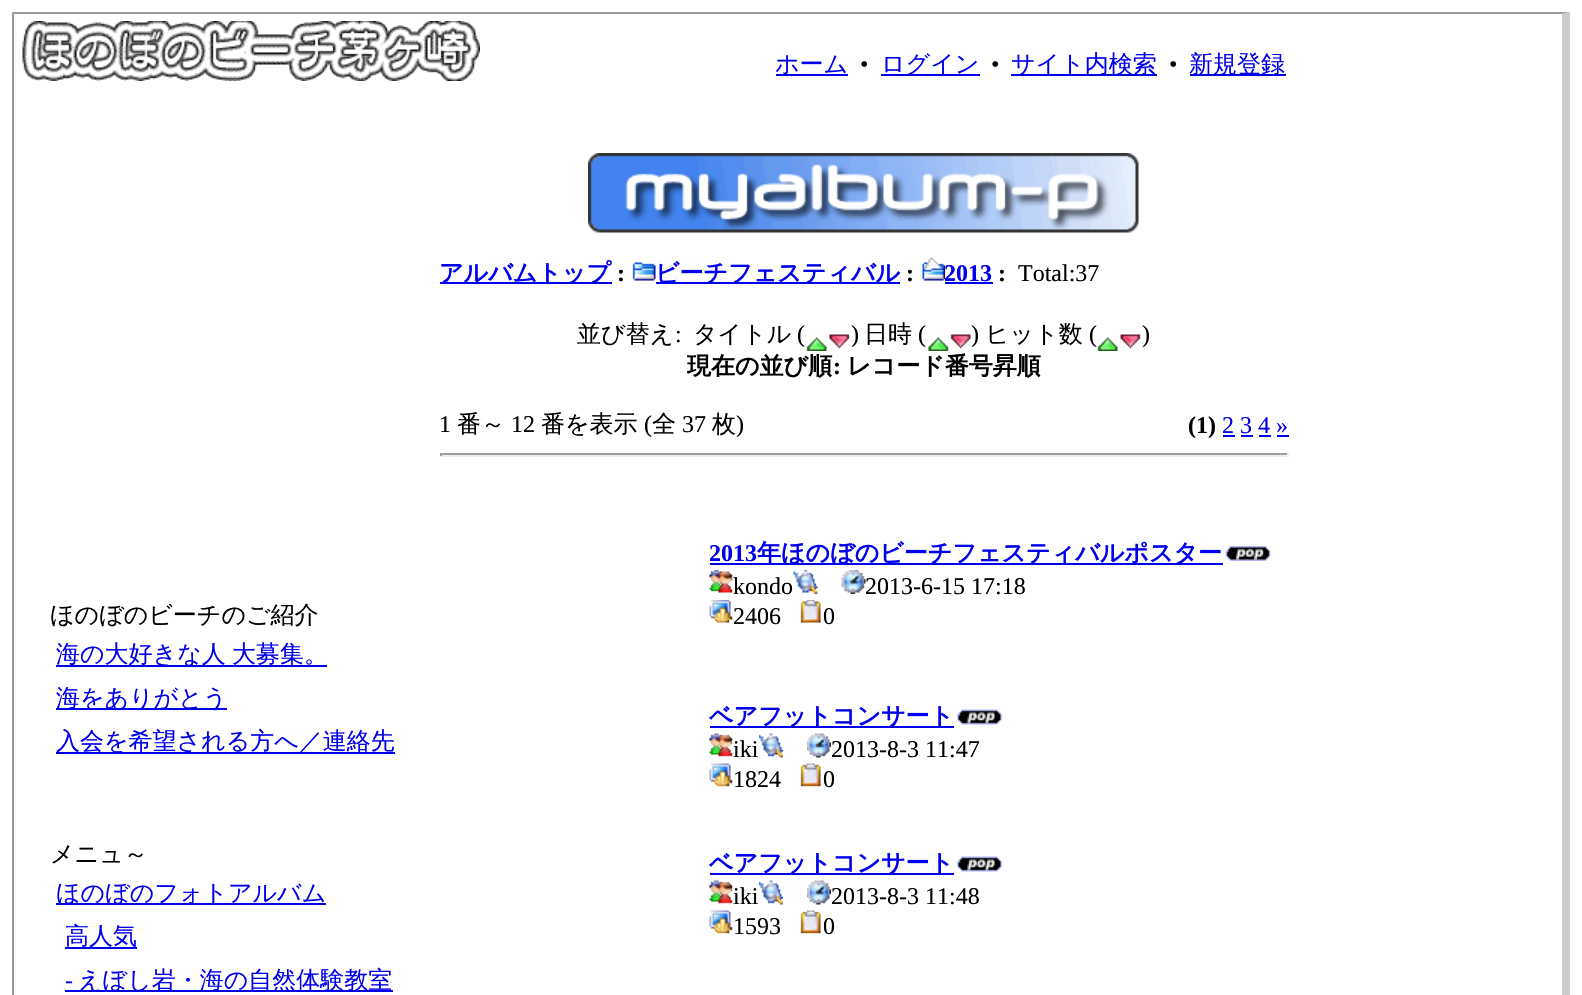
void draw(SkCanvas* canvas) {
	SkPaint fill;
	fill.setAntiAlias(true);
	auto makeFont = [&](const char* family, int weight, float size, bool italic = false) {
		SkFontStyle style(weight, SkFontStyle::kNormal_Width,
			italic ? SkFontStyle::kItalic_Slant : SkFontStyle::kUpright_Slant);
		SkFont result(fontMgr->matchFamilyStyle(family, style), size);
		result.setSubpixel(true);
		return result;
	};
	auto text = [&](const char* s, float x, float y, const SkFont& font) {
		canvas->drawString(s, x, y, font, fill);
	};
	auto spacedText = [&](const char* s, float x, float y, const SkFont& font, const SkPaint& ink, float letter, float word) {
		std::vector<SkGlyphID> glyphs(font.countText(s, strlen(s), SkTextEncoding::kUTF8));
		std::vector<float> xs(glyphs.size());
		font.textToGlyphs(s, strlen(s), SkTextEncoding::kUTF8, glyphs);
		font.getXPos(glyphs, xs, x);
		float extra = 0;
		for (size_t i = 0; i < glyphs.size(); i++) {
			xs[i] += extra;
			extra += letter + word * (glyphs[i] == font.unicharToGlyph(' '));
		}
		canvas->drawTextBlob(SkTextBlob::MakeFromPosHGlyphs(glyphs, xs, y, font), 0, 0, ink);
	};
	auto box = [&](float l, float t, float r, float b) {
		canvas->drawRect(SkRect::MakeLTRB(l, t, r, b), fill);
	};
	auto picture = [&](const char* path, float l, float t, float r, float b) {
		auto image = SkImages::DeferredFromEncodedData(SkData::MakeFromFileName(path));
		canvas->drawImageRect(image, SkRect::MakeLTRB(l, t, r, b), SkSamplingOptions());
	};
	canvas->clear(0xFFFFFFFF);
	fill.setColor(0xFF999999);
	canvas->drawPath(SkPathBuilder().moveTo(12, 12).lineTo(1570, 12).lineTo(1562, 14).lineTo(14, 14).close().detach(), fill);
	fill.setColor(0xFFCCCCCC);
	canvas->drawPath(SkPathBuilder().moveTo(1570, 12).lineTo(1570, 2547).lineTo(1562, 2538).lineTo(1562, 14).close().detach(), fill);
	fill.setColor(0xFF999999);
	canvas->drawPath(SkPathBuilder().moveTo(12, 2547).lineTo(12, 12).lineTo(14, 14).lineTo(14, 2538).close().detach(), fill);
	picture("image0.png", 22, 21, 480, 81);
	fill.setColor(0xFF0000EE);
	box(776, 74, 848, 76);
	box(881, 74, 980, 76);
	box(1011, 74, 1157, 76);
	box(1190, 74, 1286, 76);
	box(56, 665, 327, 667);
	box(56, 708, 227, 710);
	box(56, 752, 395, 754);
	box(56, 903, 326, 905);
	box(65, 947, 137, 949);
	box(65, 990, 393, 992);
	picture("image1.png", 588, 153, 1139, 233);
	box(440, 282, 612, 284);
	picture("image2.png", 632, 262, 656, 281);
	box(656, 282, 900, 284);
	picture("image3.png", 922, 257, 945, 281);
	box(945, 282, 993, 284);
	picture("image4.png", 806, 337, 827, 351);
	picture("image5.png", 829, 334, 850, 349);
	picture("image6.png", 928, 337, 949, 351);
	picture("image7.png", 950, 334, 971, 349);
	picture("image4.png", 1097, 337, 1118, 351);
	picture("image8.png", 1120, 334, 1141, 349);
	box(1223, 435, 1235, 437);
	box(1241, 435, 1253, 437);
	box(1259, 435, 1271, 437);
	box(1277, 435, 1289, 437);
	fill.setColor(0xFF9F9F9F);
	box(440, 453, 1289, 455);
	fill.setColor(0xFFEEEEEE);
	box(1287, 453, 1289, 456);
	box(440, 455, 1289, 457);
	fill.setColor(0xFF9F9F9F);
	box(440, 453, 442, 456);
	fill.setColor(0xFF0000EE);
	box(710, 563, 1223, 565);
	picture("image9.png", 1225, 546, 1271, 561);
	picture("image10.png", 709, 570, 733, 593);
	picture("image11.png", 793, 570, 818, 594);
	picture("image12.png", 841, 570, 866, 594);
	picture("image13.png", 709, 600, 733, 623);
	picture("image14.png", 800, 600, 821, 623);
	box(710, 726, 954, 728);
	picture("image15.png", 956, 709, 1003, 725);
	picture("image16.png", 709, 733, 733, 757);
	picture("image17.png", 759, 733, 783, 758);
	picture("image18.png", 807, 733, 831, 758);
	picture("image19.png", 709, 763, 733, 787);
	picture("image20.png", 800, 763, 821, 787);
	box(710, 873, 954, 875);
	picture("image15.png", 956, 856, 1003, 872);
	picture("image16.png", 709, 880, 733, 904);
	picture("image17.png", 759, 880, 783, 905);
	picture("image18.png", 807, 880, 831, 905);
	picture("image19.png", 709, 910, 733, 934);
	picture("image20.png", 800, 910, 821, 934);
	auto font1 = makeFont("WenQuanYi Zen Hei", 500, 24);
	text("ホーム", 775, 72, font1);
	auto font2 = makeFont("Liberation Serif", 400, 24);
	fill.setColor(0xFF000000);
	text("•", 860, 72, font2);
	fill.setColor(0xFF0000EE);
	text("ログイン", 881, 72, font1);
	fill.setColor(0xFF000000);
	text("•", 991, 72, font2);
	fill.setColor(0xFF0000EE);
	text("サイト内検索", 1011, 72, font1);
	fill.setColor(0xFF000000);
	text("•", 1169, 72, font2);
	fill.setColor(0xFF0000EE);
	text("新規登録", 1189, 72, font1);
	fill.setColor(0xFF000000);
	text("ほのぼのビーチのご紹介", 50, 623, font1);
	fill.setColor(0xFF0000EE);
	spacedText("海の大好きな人 大募集。", 56, 662, font1, fill, 0, -1);
	text("海をありがとう", 56, 706, font1);
	text("入会を希望される方へ／連絡先", 56, 749, font1);
	fill.setColor(0xFF000000);
	text("メニュ～", 50, 862, font1);
	fill.setColor(0xFF0000EE);
	text("ほのぼのフォトアルバム", 56, 901, font1);
	text("高人気", 65, 944, font1);
	text("-", 65, 988, font2);
	text("えぼし岩・海の自然体験教室", 78, 988, font1);
	auto font3 = makeFont("WenQuanYi Zen Hei", 700, 24);
	text("アルバムトップ", 439, 281, font3);
	auto font4 = makeFont("Liberation Serif", 700, 24);
	fill.setColor(0xFF000000);
	text(":", 617, 281, font4);
	fill.setColor(0xFF0000EE);
	text("ビーチフェスティバル", 655, 281, font3);
	fill.setColor(0xFF000000);
	text(":", 906, 281, font4);
	fill.setColor(0xFF0000EE);
	text("2013", 944, 281, font4);
	fill.setColor(0xFF000000);
	text(":", 998, 281, font4);
	text("Total:37", 1018, 281, font2);
	text("並び替え", 577, 342, font1);
	text(":", 675, 342, font2);
	text("タイトル", 693, 342, font1);
	text("(", 797, 342, font2);
	text(")", 851, 342, font2);
	text("日時", 864, 342, font1);
	text("(", 918, 342, font2);
	text(")", 971, 342, font2);
	text("ヒット数", 985, 342, font1);
	text("(", 1089, 342, font2);
	text(")", 1142, 342, font2);
	text("現在の並び順", 687, 374, font3);
	text(":", 833, 374, font4);
	text("レコード番号昇順", 847, 374, font3);
	text("1", 439, 432, font2);
	text("番～", 457, 432, font1);
	text("12", 511, 432, font2);
	text("番を表示", 541, 432, font1);
	text("(", 644, 432, font2);
	text("全", 652, 432, font1);
	text("37", 682, 432, font2);
	text("枚", 712, 432, font1);
	text(")", 736, 432, font2);
	text("(1)", 1188, 433, font4);
	fill.setColor(0xFF0000EE);
	text("2 3 4 »", 1222, 433, font2);
	text("2013", 709, 561, font4);
	text("年ほのぼのビーチフェスティバルポスター", 757, 561, font3);
	fill.setColor(0xFF000000);
	text("kondo", 733, 594, font2);
	text("2013-6-15 17:18", 865, 594, font2);
	text("2406", 733, 624, font2);
	text("0", 823, 624, font2);
	fill.setColor(0xFF0000EE);
	text("ベアフットコンサート", 709, 724, font3);
	fill.setColor(0xFF000000);
	text("iki", 733, 757, font2);
	text("2013-8-3 11:47", 831, 757, font2);
	text("1824", 733, 787, font2);
	text("0", 823, 787, font2);
	fill.setColor(0xFF0000EE);
	text("ベアフットコンサート", 709, 871, font3);
	fill.setColor(0xFF000000);
	text("iki", 733, 904, font2);
	text("2013-8-3 11:48", 831, 904, font2);
	text("1593", 733, 934, font2);
	text("0", 823, 934, font2);
}
